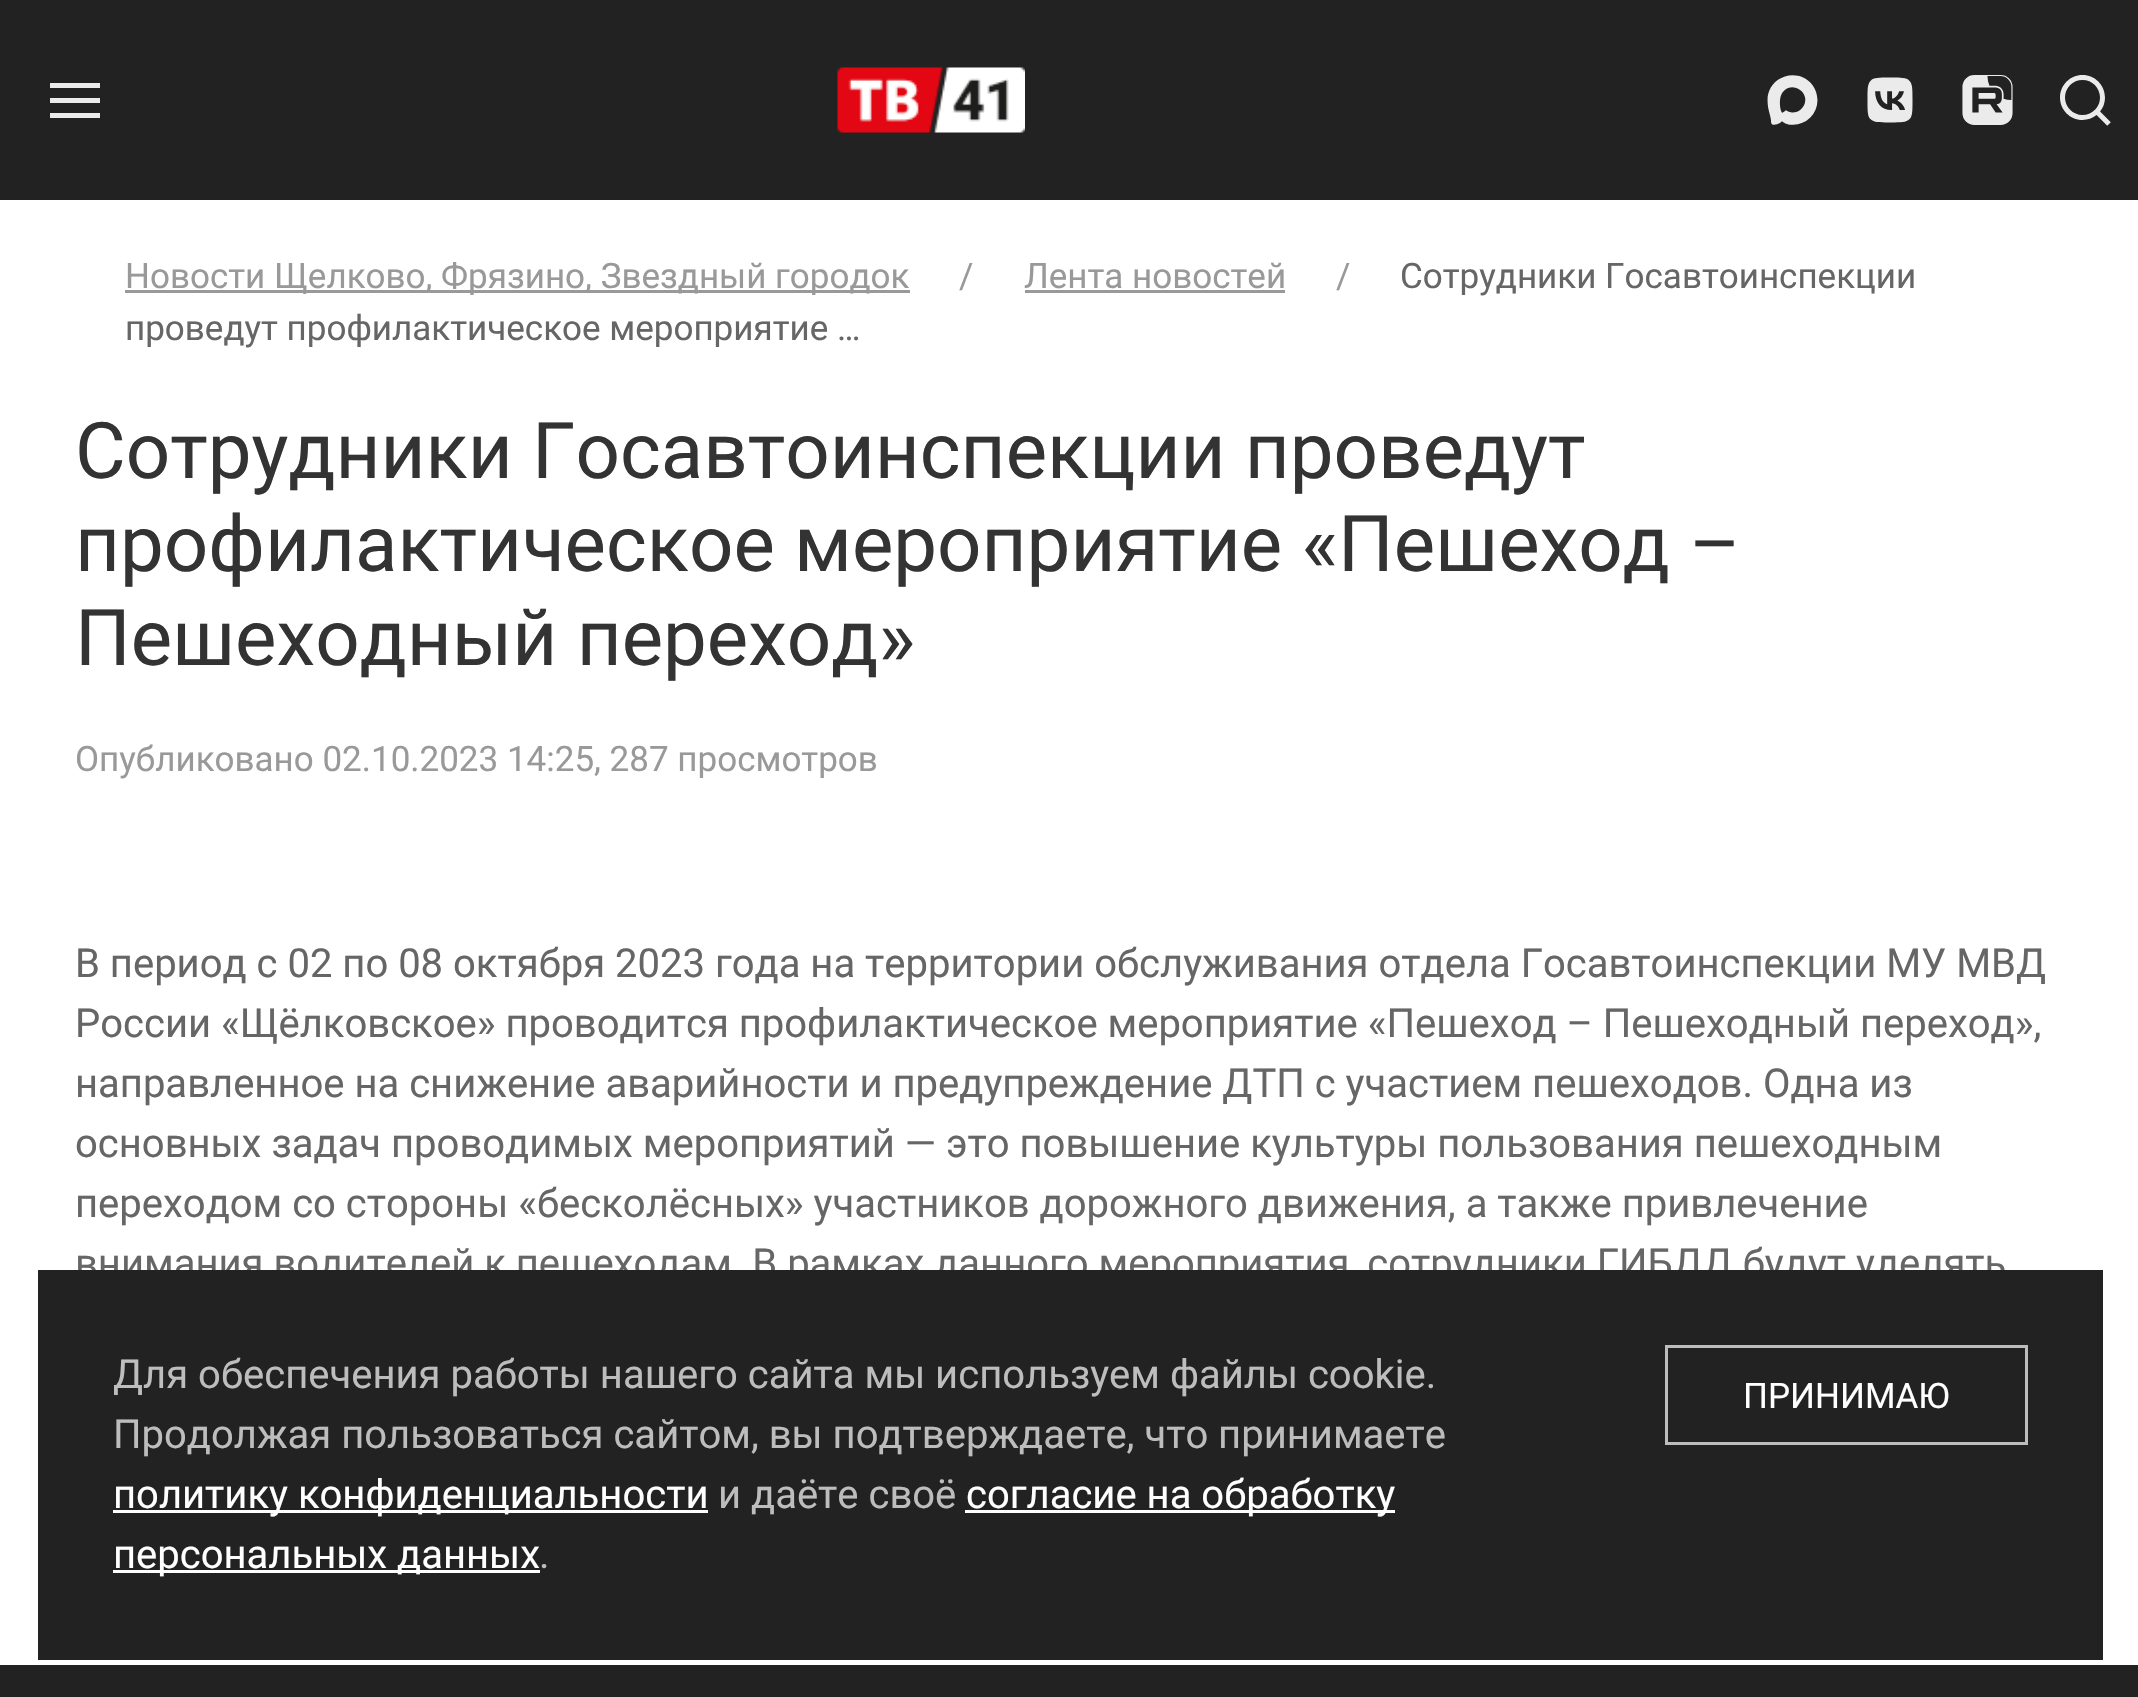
void draw(SkCanvas* canvas) {
	SkPaint fill;
	fill.setAntiAlias(true);
	auto makeFont = [&](const char* family, int weight, float size, bool italic = false) {
		SkFontStyle style(weight, SkFontStyle::kNormal_Width,
			italic ? SkFontStyle::kItalic_Slant : SkFontStyle::kUpright_Slant);
		SkFont result(fontMgr->matchFamilyStyle(family, style), size);
		result.setSubpixel(true);
		return result;
	};
	auto text = [&](const char* s, float x, float y, const SkFont& font) {
		canvas->drawString(s, x, y, font, fill);
	};
	auto box = [&](float l, float t, float r, float b) {
		canvas->drawRect(SkRect::MakeLTRB(l, t, r, b), fill);
	};
	auto picture = [&](const char* path, float l, float t, float r, float b) {
		auto image = SkImages::DeferredFromEncodedData(SkData::MakeFromFileName(path));
		canvas->drawImageRect(image, SkRect::MakeLTRB(l, t, r, b), SkSamplingOptions());
	};
	canvas->clear(0xFFFFFFFF);
	fill.setColor(0xFF222222);
	box(0, 0, 2138, 200);
	fill.setColor(0xFFEBEBEB);
	box(50, 83, 100, 88);
	box(50, 98, 100, 103);
	box(50, 113, 100, 118);
	picture("image0.png", 837, 67, 1025, 133);
	picture("image1.png", 1767, 75, 1818, 125);
	picture("image2.png", 1867, 77, 1913, 123);
	picture("image3.png", 1962, 75, 2013, 125);
	picture("image4.png", 2060, 75, 2111, 126);
	fill.setColor(0xFF999999);
	box(125, 290, 910, 293);
	box(1025, 290, 1285, 293);
	fill.setColor(0xFF222222);
	box(0, 1665, 2138, 1697);
	auto font1 = makeFont("Roboto", 400, 35);
	fill.setColor(0xFF999999);
	text("Новости Щелково, Фрязино, Звездный городок", 125, 288, font1);
	text("/", 1336, 288, font1);
	fill.setColor(0xFF666666);
	text("Сотрудники Госавтоинспекции", 1400, 288, font1);
	text("проведут профилактическое мероприятие …", 125, 340, font1);
	fill.setColor(0xFF999999);
	text("/", 959, 288, font1);
	text("Лента новостей", 1024, 288, font1);
	auto font2 = makeFont("Roboto", 400, 78);
	fill.setColor(0xFF333333);
	text("Сотрудники Госавтоинспекции проведут", 75, 478, font2);
	text("профилактическое мероприятие «Пешеход –", 75, 571, font2);
	text("Пешеходный переход»", 75, 665, font2);
	fill.setColor(0xFF999999);
	text("Опубликовано 02.10.2023 14:25, 287 просмотров", 75, 771, font1);
	auto font3 = makeFont("Roboto", 400, 40);
	fill.setColor(0xFF666666);
	text("В период с 02 по 08 октября 2023 года на территории обслуживания отдела Госавтоинспекции МУ МВД", 75, 977, font3);
	text("России «Щёлковское» проводится профилактическое мероприятие «Пешеход – Пешеходный переход»,", 75, 1037, font3);
	text("направленное на снижение аварийности и предупреждение ДТП с участием пешеходов. Одна из", 75, 1097, font3);
	text("основных задач проводимых мероприятий — это повышение культуры пользования пешеходным", 75, 1157, font3);
	text("переходом со стороны «бесколёсных» участников дорожного движения, а также привлечение", 75, 1217, font3);
	text("внимания водителей к пешеходам. В рамках данного мероприятия, сотрудники ГИБДД будут уделять", 75, 1277, font3);
	fill.setColor(0xFF222222);
	box(38, 1270, 2103, 1660);
	fill.setColor(0xFFBDBDBD);
	text("Для обеспечения работы нашего сайта мы используем файлы cookie.", 113, 1388, font3);
	text("Продолжая пользоваться сайтом, вы подтверждаете, что принимаете", 113, 1448, font3);
	fill.setColor(0xFFFFFFFF);
	box(113, 1510, 708, 1513);
	text("политику конфиденциальности", 113, 1508, font3);
	fill.setColor(0xFFBDBDBD);
	text("и даёте своё", 718, 1508, font3);
	fill.setColor(0xFFFFFFFF);
	box(965, 1510, 1395, 1513);
	text("согласие на обработку", 966, 1508, font3);
	box(113, 1570, 540, 1573);
	text("персональных данных", 113, 1568, font3);
	fill.setColor(0xFFBDBDBD);
	text(".", 539, 1568, font3);
	fill.setStyle(SkPaint::kStroke_Style);
	fill.setStrokeWidth(3);
	canvas->drawRect(SkRect::MakeLTRB(1666.5f, 1346.5f, 2026.5f, 1443.5f), fill);
	fill.setStyle(SkPaint::kFill_Style);
	fill.setColor(0xFFFFFFFF);
	text("ПРИНИМАЮ", 1743, 1408, font1);
}
